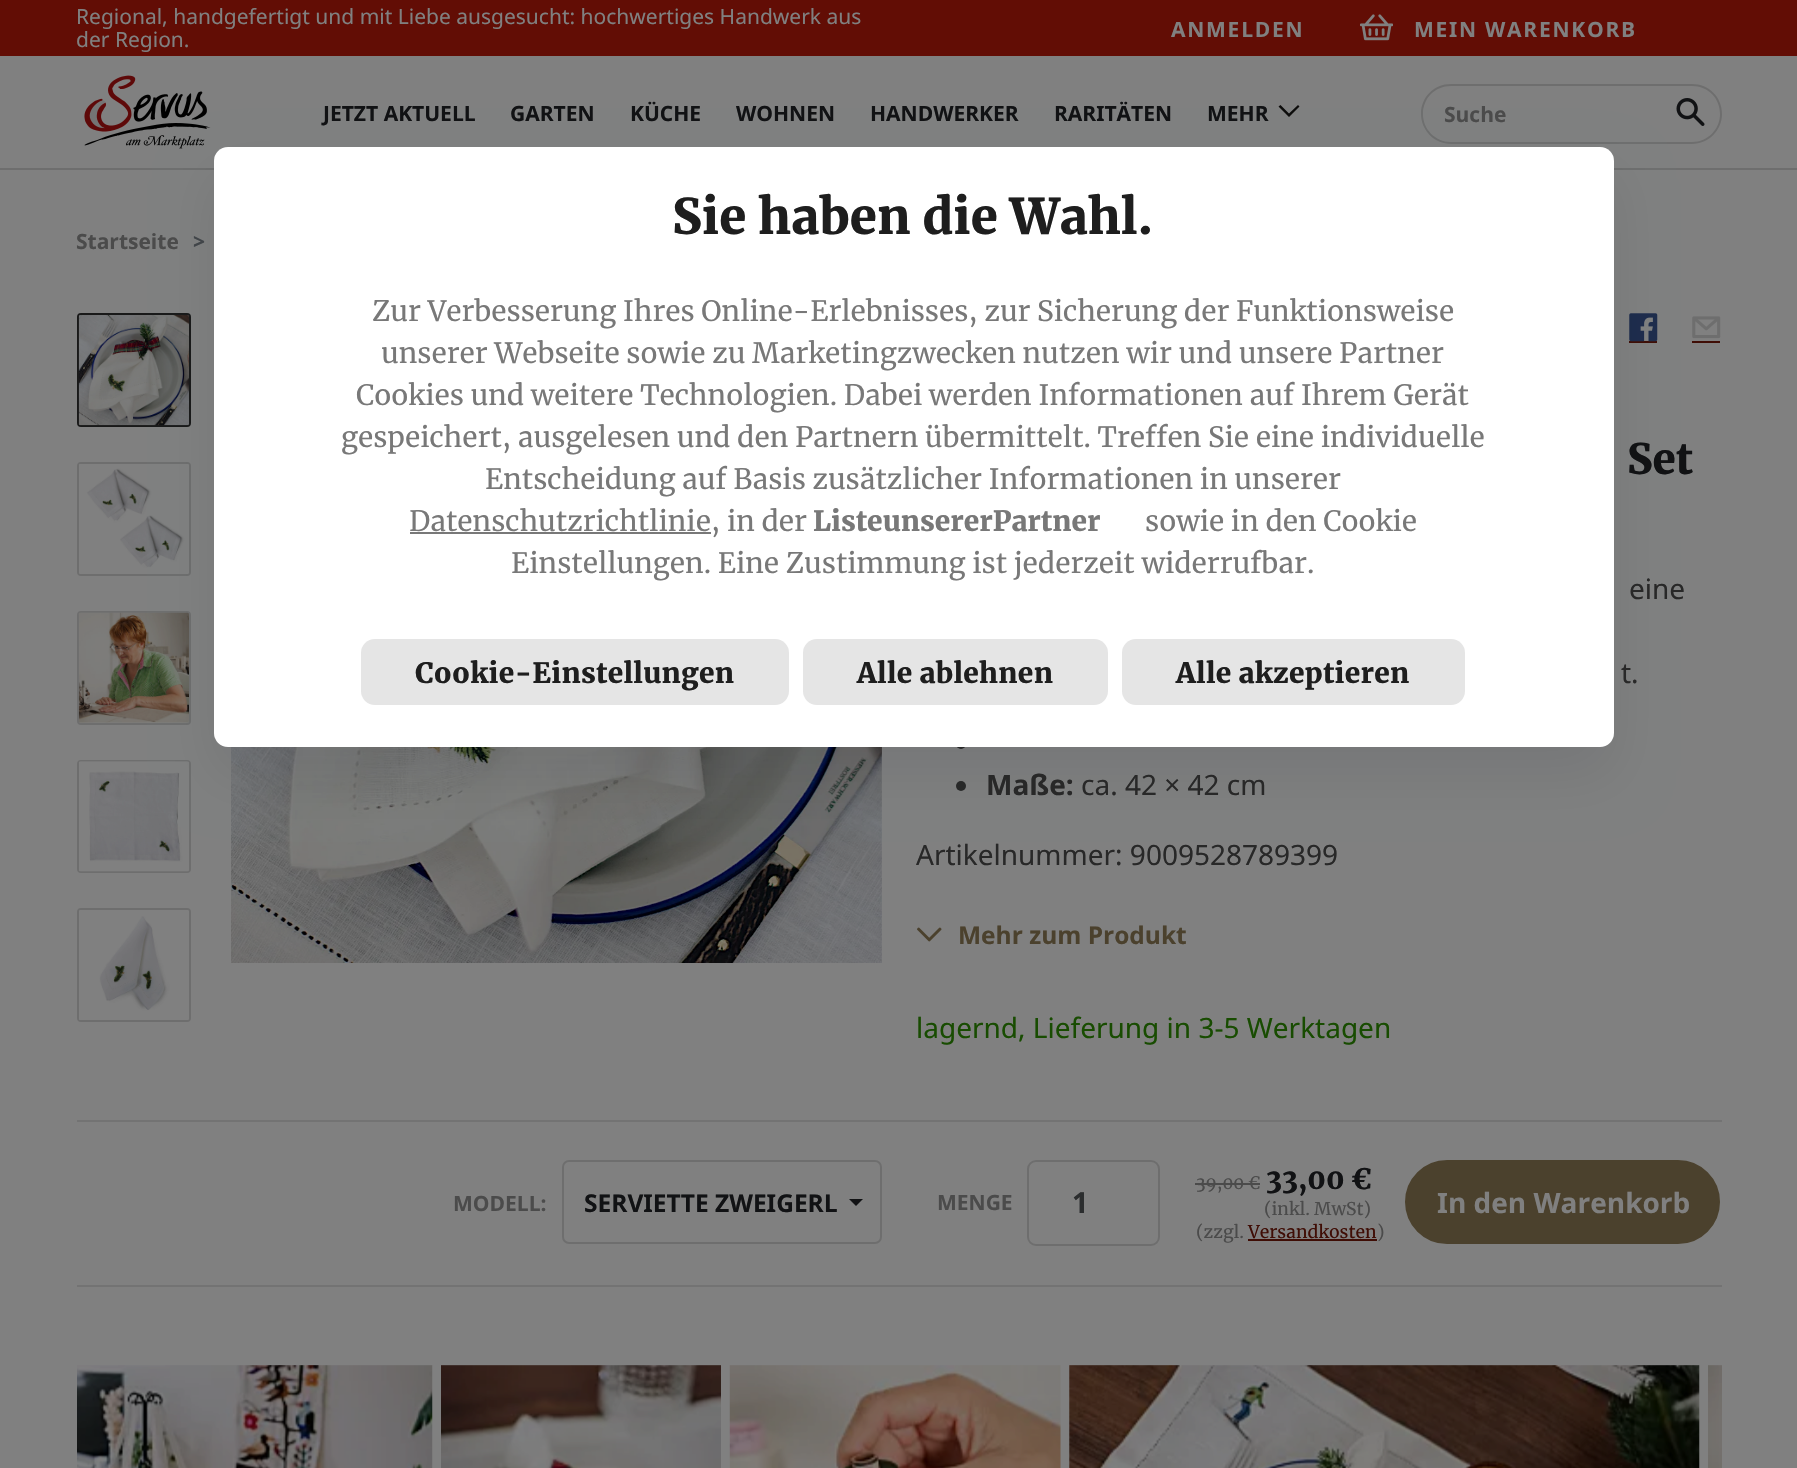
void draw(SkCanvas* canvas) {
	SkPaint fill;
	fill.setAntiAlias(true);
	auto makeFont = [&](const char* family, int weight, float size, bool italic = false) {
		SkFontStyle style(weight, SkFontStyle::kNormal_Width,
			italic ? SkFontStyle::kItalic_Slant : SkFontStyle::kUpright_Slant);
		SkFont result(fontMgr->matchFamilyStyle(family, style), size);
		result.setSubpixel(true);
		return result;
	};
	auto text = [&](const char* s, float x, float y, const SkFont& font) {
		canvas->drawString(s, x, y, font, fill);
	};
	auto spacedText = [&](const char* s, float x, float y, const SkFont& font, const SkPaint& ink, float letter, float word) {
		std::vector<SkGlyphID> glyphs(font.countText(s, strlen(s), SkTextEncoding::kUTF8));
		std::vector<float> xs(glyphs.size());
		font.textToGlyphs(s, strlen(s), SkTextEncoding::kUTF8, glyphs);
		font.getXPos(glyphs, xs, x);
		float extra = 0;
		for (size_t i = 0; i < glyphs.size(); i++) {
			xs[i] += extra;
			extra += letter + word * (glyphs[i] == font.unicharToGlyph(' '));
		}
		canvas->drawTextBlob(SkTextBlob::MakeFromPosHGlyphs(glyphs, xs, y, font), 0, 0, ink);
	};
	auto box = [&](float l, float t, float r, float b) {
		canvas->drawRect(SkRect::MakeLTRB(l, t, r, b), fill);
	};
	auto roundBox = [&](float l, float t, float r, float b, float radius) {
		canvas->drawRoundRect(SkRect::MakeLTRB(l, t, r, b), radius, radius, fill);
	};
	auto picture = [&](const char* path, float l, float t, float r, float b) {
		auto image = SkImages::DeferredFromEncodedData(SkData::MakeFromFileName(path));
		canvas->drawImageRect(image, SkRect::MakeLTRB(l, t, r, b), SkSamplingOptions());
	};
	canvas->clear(0xFF808080);
	fill.setColor(0xFF6E6E6E);
	box(0, 168, 1797, 170);
	fill.setColor(0xFF620D05);
	box(0, 0, 1797, 56);
	fill.setColor(0xFF0D0C0B);
	canvas->drawPath(SkPathBuilder().moveTo(1299.5f, 106.5f).lineTo(1298, 105).lineTo(1289, 113.5f).lineTo(1280.5f, 105).lineTo(1278.5f, 106.5f).lineTo(1289, 117).close().detach(), fill);
	picture("image0.png", 1360, 14, 1393, 41);
	picture("image1.png", 84, 75, 211, 149);
	fill.setColor(0xFF6E6E6E);
	canvas->drawPath(SkPathBuilder(SkPathFillType::kEvenOdd).moveTo(1451, 84).lineTo(1666, 84).lineTo(1666, 144).lineTo(1451, 144).cubicTo(1434, 144, 1421, 130, 1421, 114).cubicTo(1421, 97, 1434, 84, 1451, 84).close().moveTo(1451, 86).lineTo(1666, 86).lineTo(1666, 142).lineTo(1451, 142).cubicTo(1435, 142, 1423, 129, 1423, 114).cubicTo(1423, 98, 1435, 86, 1451, 86).close().detach(), fill);
	canvas->drawPath(SkPathBuilder(SkPathFillType::kEvenOdd).moveTo(1664, 84).lineTo(1692, 84).cubicTo(1709, 84, 1722, 97, 1722, 114).cubicTo(1722, 130, 1709, 144, 1692, 144).lineTo(1664, 144).close().moveTo(1664, 86).lineTo(1692, 86).cubicTo(1708, 86, 1720, 98, 1720, 114).cubicTo(1720, 129, 1708, 142, 1692, 142).lineTo(1664, 142).close().detach(), fill);
	picture("image2.png", 1676, 98, 1705, 126);
	fill.setStyle(SkPaint::kStroke_Style);
	fill.setStrokeWidth(2);
	fill.setColor(0xFF191919);
	canvas->drawRoundRect(SkRect::MakeLTRB(78, 314, 190, 426), 3, 3, fill);
	picture("image3.png", 78, 315, 189, 426);
	fill.setColor(0xFF6E6E6E);
	canvas->drawRoundRect(SkRect::MakeLTRB(78, 463, 190, 575), 3, 3, fill);
	picture("image4.png", 79, 464, 189, 574);
	canvas->drawRoundRect(SkRect::MakeLTRB(78, 612, 190, 724), 3, 3, fill);
	picture("image5.png", 78, 612, 189, 723);
	canvas->drawRoundRect(SkRect::MakeLTRB(78, 761, 190, 872), 3, 3, fill);
	picture("image6.png", 79, 761, 189, 872);
	canvas->drawRoundRect(SkRect::MakeLTRB(78, 909, 190, 1021), 3, 3, fill);
	picture("image7.png", 79, 910, 189, 1020);
	picture("image8.png", 231, 747, 882, 963);
	fill.setStyle(SkPaint::kFill_Style);
	fill.setColor(0xFF3F0D05);
	box(1629, 341, 1657, 343);
	picture("image9.png", 1629, 313, 1658, 342);
	picture("image10.png", 1692, 316, 1721, 339);
	box(1692, 341, 1720, 343);
	fill.setColor(0xFF282828);
	canvas->drawCircle(961, 744, 5, fill);
	canvas->drawCircle(961, 786, 5, fill);
	picture("image11.png", 917, 927, 942, 942);
	fill.setColor(0xFF737373);
	box(77, 1120, 1722, 1122);
	fill.setStyle(SkPaint::kStroke_Style);
	fill.setColor(0xFF6E6E6E);
	canvas->drawRoundRect(SkRect::MakeLTRB(563, 1161, 881, 1243), 6, 6, fill);
	fill.setStyle(SkPaint::kFill_Style);
	fill.setColor(0xFF111214);
	canvas->drawPath(SkPathBuilder().moveTo(849, 1199).lineTo(863, 1199).lineTo(856, 1206).close().detach(), fill);
	fill.setStyle(SkPaint::kStroke_Style);
	fill.setColor(0xFF6E6E6E);
	canvas->drawRoundRect(SkRect::MakeLTRB(1028, 1161, 1159, 1245), 8, 8, fill);
	fill.setStyle(SkPaint::kFill_Style);
	fill.setColor(0xFF4B4B4B);
	box(1195, 1183, 1260, 1185);
	fill.setColor(0xFF3F0D05);
	box(1248, 1239, 1377, 1241);
	fill.setColor(0xFF4B412D);
	canvas->drawRoundRect(SkRect::MakeLTRB(1406, 1161, 1719, 1243), 41, 41, fill);
	fill.setStyle(SkPaint::kStroke_Style);
	canvas->drawRoundRect(SkRect::MakeLTRB(1406, 1161, 1719, 1243), 41, 41, fill);
	fill.setStyle(SkPaint::kFill_Style);
	fill.setColor(0xFF737373);
	box(77, 1285, 1722, 1287);
	picture("image12.png", 77, 1365, 433, 1468);
	picture("image13.png", 441, 1365, 721, 1468);
	picture("image14.png", 729, 1365, 1061, 1468);
	picture("image15.png", 1069, 1365, 1700, 1468);
	picture("image16.png", 1708, 1365, 1722, 1468);
	fill.setColor(0x14000F1E);
	fill.setMaskFilter(SkMaskFilter::MakeBlur(kNormal_SkBlurStyle, 28));
	canvas->drawRoundRect(SkRect::MakeLTRB(214, 175, 1614, 775), 14, 14, fill);
	fill.setMaskFilter(nullptr);
	fill.setColor(0xFFFFFFFF);
	roundBox(214, 147, 1614, 747, 14);
	fill.setColor(0xFF787878);
	box(410, 532, 711, 534);
	fill.setColor(0xFFE5E5E5);
	roundBox(361, 639, 789, 705, 14);
	roundBox(803, 639, 1108, 705, 14);
	roundBox(1122, 639, 1465, 705, 14);
	auto font1 = makeFont("Noto Sans", 400, 21);
	fill.setColor(0xFF808080);
	text("Regional, handgefertigt und mit Liebe ausgesucht: hochwertiges Handwerk aus", 76, 24, font1);
	text("der Region.", 76, 47, font1);
	auto font2 = makeFont("Noto Sans", 700, 21);
	fill.setColor(0xFF111214);
	text("JETZT AKTUELL", 323, 121, font2);
	text("GARTEN", 510, 121, font2);
	text("KÜCHE", 630, 121, font2);
	text("WOHNEN", 736, 121, font2);
	text("HANDWERKER", 870, 121, font2);
	text("RARITÄTEN", 1054, 121, font2);
	text("MEHR", 1207, 121, font2);
	fill.setColor(0xFF808080);
	spacedText("ANMELDEN", 1171, 37, font2, fill, 1.75f, 0);
	spacedText("MEIN WARENKORB", 1414, 37, font2, fill, 1.75f, 0);
	fill.setColor(0xFF4B4B4B);
	text("Suche", 1444, 122, font2);
	text("Startseite", 76, 249, font2);
	fill.setColor(0xFF414549);
	text(">", 193, 249, font2);
	auto font3 = makeFont("Merriweather", 900, 42);
	fill.setColor(0xFF111214);
	text("Set", 1627, 474, font3);
	auto font4 = makeFont("Noto Sans", 400, 28);
	fill.setColor(0xFF282828);
	text("eine", 1629, 599, font4);
	text("t.", 1621, 683, font4);
	auto font5 = makeFont("Noto Sans", 700, 28);
	text("Maße:", 986, 795, font5);
	text("ca. 42 × 42 cm", 1081, 795, font4);
	text("Artikelnummer: 9009528789399", 916, 865, font4);
	auto font6 = makeFont("Noto Sans", 700, 24.5f);
	fill.setColor(0xFF4B412D);
	text("Mehr zum Produkt", 958, 944, font6);
	fill.setColor(0xFF184C01);
	text("lagernd, Lieferung in 3-5 Werktagen", 916, 1038, font4);
	fill.setColor(0xFF4B4B4B);
	text("MODELL:", 453, 1211, font2);
	canvas->save();
	canvas->clipRect(SkRect::MakeLTRB(585, 1173, 838, 1232));
	fill.setColor(0xFF111214);
	text("SERVIETTE ZWEIGERL", 584, 1212, font6);
	canvas->restore();
	fill.setColor(0xFF4B4B4B);
	text("MENGE", 937, 1210, font2);
	auto font7 = makeFont("Noto Sans", 700, 29);
	fill.setColor(0xFF2B2D2E);
	text("1", 1072, 1213, font7);
	auto font8 = makeFont("Merriweather", 400, 17);
	fill.setColor(0xFF4B4B4B);
	text("39,00 €", 1196, 1189, font8);
	auto font9 = makeFont("Merriweather", 900, 28);
	fill.setColor(0xFF111214);
	text("33,00 €", 1266, 1189, font9);
	auto font10 = makeFont("Merriweather", 400, 17.5f);
	fill.setColor(0xFF4B4B4B);
	text("(inkl. MwSt)", 1264, 1215, font10);
	text("(zzgl.", 1196, 1238, font10);
	fill.setColor(0xFF3F0D05);
	text("Versandkosten", 1248, 1238, font10);
	fill.setColor(0xFF4B4B4B);
	text(")", 1377, 1238, font10);
	fill.setColor(0xFF808080);
	text("In den Warenkorb", 1437, 1213, font5);
	auto font11 = makeFont("Merriweather", 900, 49);
	fill.setColor(0xFF1E1E1E);
	text("Sie haben die Wahl.", 672, 234, font11);
	auto font12 = makeFont("Merriweather", 400, 28);
	fill.setColor(0xFF787878);
	text("Zur Verbesserung Ihres Online-Erlebnisses, zur Sicherung der Funktionsweise", 372, 321, font12);
	text("unserer Webseite sowie zu Marketingzwecken nutzen wir und unsere Partner", 381, 363, font12);
	text("Cookies und weitere Technologien. Dabei werden Informationen auf Ihrem Gerät", 356, 405, font12);
	text("gespeichert, ausgelesen und den Partnern übermittelt. Treffen Sie eine individuelle", 341, 447, font12);
	text("Entscheidung auf Basis zusätzlicher Informationen in unserer", 485, 489, font12);
	text("Datenschutzrichtlinie, in der", 409, 531, font12);
	text("Liste unserer Partner", 813, 531, font9);
	text("sowie in den Cookie", 1145, 531, font12);
	text("Einstellungen. Eine Zustimmung ist jederzeit widerrufbar.", 511, 573, font12);
	fill.setColor(0xFF1E1E1E);
	spacedText("Cookie-Einstellungen", 415, 683, font9, fill, 0.25f, 0);
	spacedText("Alle ablehnen", 857, 683, font9, fill, 0.25f, 0);
	spacedText("Alle akzeptieren", 1176, 683, font9, fill, 0.25f, 0);
}
